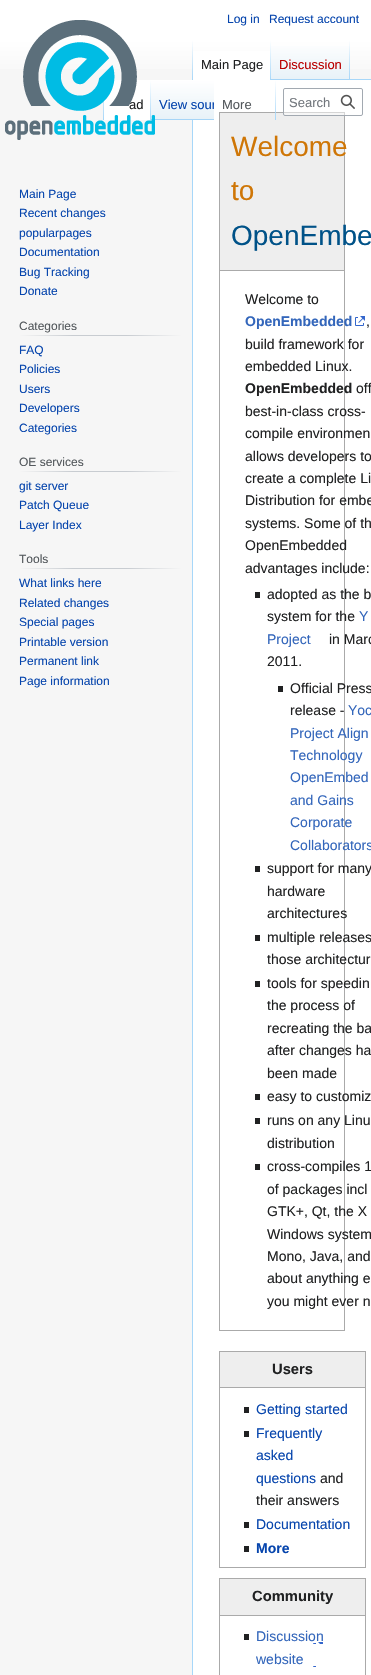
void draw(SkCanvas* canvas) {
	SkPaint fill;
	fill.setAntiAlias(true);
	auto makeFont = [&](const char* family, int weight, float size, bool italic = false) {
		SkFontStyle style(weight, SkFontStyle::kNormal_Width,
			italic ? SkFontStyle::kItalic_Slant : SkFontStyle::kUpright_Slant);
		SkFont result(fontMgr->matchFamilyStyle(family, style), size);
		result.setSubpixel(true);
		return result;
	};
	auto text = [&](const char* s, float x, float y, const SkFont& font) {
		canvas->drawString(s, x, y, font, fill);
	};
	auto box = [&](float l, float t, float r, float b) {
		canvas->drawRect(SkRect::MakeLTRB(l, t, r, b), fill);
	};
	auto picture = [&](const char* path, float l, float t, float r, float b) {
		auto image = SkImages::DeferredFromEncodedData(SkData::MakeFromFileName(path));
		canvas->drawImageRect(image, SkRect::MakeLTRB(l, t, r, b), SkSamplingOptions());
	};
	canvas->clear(0xFFF6F6F6);
	{
		const SkColor colors[] = {0xFFFFFFFF, 0xFFF6F6F6};
		const float stops[] = {0.5f, 1};
		const SkPoint ends[] = {{186, 0}, {186, 80}};
		fill.setShader(SkGradientShader::MakeLinear(ends, colors, stops, 2, SkTileMode::kClamp));
		fill.setAlpha(255);
	}
	box(0, 0, 371, 69);
	fill.setShader(nullptr);
	fill.setColor(0xFFA7D7F9);
	box(192, 79, 193, 1675);
	{
		const SkColor colors[] = {0x00A7D7F9, 0xFFA7D7F9};
		const float stops[] = {0, 1};
		const SkPoint ends[] = {{193, 40}, {193, 80}};
		fill.setShader(SkGradientShader::MakeLinear(ends, colors, stops, 2, SkTileMode::kClamp));
		fill.setAlpha(255);
	}
	box(192, 40, 193, 80);
	fill.setShader(nullptr);
	fill.setColor(0xFFFFFFFF);
	box(193, 51, 270, 80);
	{
		const SkColor colors[] = {0xFFFFFFFF, 0xFFA7D7F9};
		const float stops[] = {0, 1};
		const SkPoint ends[] = {{271, 40}, {271, 80}};
		fill.setShader(SkGradientShader::MakeLinear(ends, colors, stops, 2, SkTileMode::kClamp));
		fill.setAlpha(255);
	}
	box(270, 40, 271, 80);
	{
		const SkColor colors[] = {0xFF77C1F6, 0xFFE8F2F8, 0xFFFFFFFF};
		const float stops[] = {0, 0.03f, 1};
		const SkPoint ends[] = {{311, 80}, {311, 40}};
		fill.setShader(SkGradientShader::MakeLinear(ends, colors, stops, 3, SkTileMode::kClamp));
		fill.setAlpha(255);
	}
	box(271, 46, 350, 80);
	{
		const SkColor colors[] = {0x00A7D7F9, 0xFFA7D7F9};
		const float stops[] = {0, 1};
		const SkPoint ends[] = {{350, 40}, {350, 80}};
		fill.setShader(SkGradientShader::MakeLinear(ends, colors, stops, 2, SkTileMode::kClamp));
		fill.setAlpha(255);
	}
	box(349, 40, 350, 80);
	{
		const SkColor colors[] = {0xFFF6F6F6, 0xFFA7D7F9};
		const float stops[] = {0, 1};
		const SkPoint ends[] = {{104, 80}, {104, 120}};
		fill.setShader(SkGradientShader::MakeLinear(ends, colors, stops, 2, SkTileMode::kClamp));
		fill.setAlpha(255);
	}
	box(103, 101, 104, 120);
	fill.setShader(nullptr);
	fill.setColor(0xFFFFFFFF);
	box(104, 80, 150, 120);
	{
		const SkColor colors[] = {0xFFFFFFFF, 0xFFA7D7F9};
		const float stops[] = {0, 1};
		const SkPoint ends[] = {{151, 80}, {151, 120}};
		fill.setShader(SkGradientShader::MakeLinear(ends, colors, stops, 2, SkTileMode::kClamp));
		fill.setAlpha(255);
	}
	box(150, 80, 151, 120);
	fill.setShader(nullptr);
	fill.setColor(0xFFFFFFFF);
	box(193, 80, 371, 1675);
	{
		const SkColor colors[] = {0xFF77C1F6, 0xFFE8F2F8, 0xFFFFFFFF};
		const float stops[] = {0, 0.03f, 1};
		const SkPoint ends[] = {{183, 120}, {183, 80}};
		fill.setShader(SkGradientShader::MakeLinear(ends, colors, stops, 3, SkTileMode::kClamp));
		fill.setAlpha(255);
	}
	box(151, 80, 214, 120);
	fill.setStyle(SkPaint::kStroke_Style);
	fill.setStrokeWidth(1);
	fill.setShader(nullptr);
	fill.setColor(0xFFAAAAAA);
	canvas->drawRect(SkRect::MakeLTRB(219.5f, 112.5f, 344.5f, 1330.5f), fill);
	fill.setStyle(SkPaint::kFill_Style);
	fill.setColor(0xFFEEEEEE);
	box(220, 113, 344, 270);
	{
		const SkColor colors[] = {0x00A7D7F9, 0xFFA7D7F9};
		const float stops[] = {0, 1};
		const SkPoint ends[] = {{276, 80}, {276, 120}};
		fill.setShader(SkGradientShader::MakeLinear(ends, colors, stops, 2, SkTileMode::kClamp));
		fill.setAlpha(255);
	}
	box(275, 80, 276, 120);
	fill.setShader(nullptr);
	fill.setColor(0x80FFFFFF);
	canvas->drawRoundRect(SkRect::MakeLTRB(283.5f, 88.5f, 362.5f, 115.5f), 1.5f, 1.5f, fill);
	fill.setStyle(SkPaint::kStroke_Style);
	fill.setColor(0xFFA2A9B1);
	canvas->drawRoundRect(SkRect::MakeLTRB(283.5f, 88.5f, 362.5f, 115.5f), 1.5f, 1.5f, fill);
	picture("image0.png", 340, 94, 355, 109);
	fill.setStyle(SkPaint::kFill_Style);
	{
		const SkColor colors[] = {0xFFF6F6F6, 0xFFC8CCD1, 0xFFC8CCD1, 0xFFF6F6F6};
		const float stops[] = {0, 0.33f, 0.66f, 1};
		const SkPoint ends[] = {{19, 336}, {182, 336}};
		fill.setShader(SkGradientShader::MakeLinear(ends, colors, stops, 4, SkTileMode::kClamp));
		fill.setAlpha(255);
	}
	box(19, 335, 182, 336);
	{
		const SkColor colors[] = {0xFFF6F6F6, 0xFFC8CCD1, 0xFFC8CCD1, 0xFFF6F6F6};
		const float stops[] = {0, 0.33f, 0.66f, 1};
		const SkPoint ends[] = {{19, 472}, {182, 472}};
		fill.setShader(SkGradientShader::MakeLinear(ends, colors, stops, 4, SkTileMode::kClamp));
		fill.setAlpha(255);
	}
	box(19, 471, 182, 472);
	{
		const SkColor colors[] = {0xFFF6F6F6, 0xFFC8CCD1, 0xFFC8CCD1, 0xFFF6F6F6};
		const float stops[] = {0, 0.33f, 0.66f, 1};
		const SkPoint ends[] = {{19, 569}, {182, 569}};
		fill.setShader(SkGradientShader::MakeLinear(ends, colors, stops, 4, SkTileMode::kClamp));
		fill.setAlpha(255);
	}
	box(19, 568, 182, 569);
	fill.setShader(nullptr);
	fill.setColor(0xFFA7D7F9);
	box(350, 79, 371, 80);
	fill.setColor(0xFFAAAAAA);
	box(220, 270, 344, 271);
	picture("image2.png", 355, 316, 365, 326);
	fill.setColor(0xFF202122);
	box(255, 592, 260, 598);
	box(278, 686, 283, 692);
	box(255, 866, 260, 872);
	box(255, 935, 260, 941);
	box(255, 981, 260, 987);
	box(255, 1094, 260, 1100);
	box(255, 1118, 260, 1124);
	box(255, 1164, 260, 1170);
	fill.setStyle(SkPaint::kStroke_Style);
	fill.setColor(0xFFAAAAAA);
	canvas->drawRect(SkRect::MakeLTRB(219.5f, 1351.5f, 365.5f, 1567.5f), fill);
	fill.setStyle(SkPaint::kFill_Style);
	fill.setColor(0xFFEEEEEE);
	box(220, 1352, 365, 1387);
	fill.setColor(0xFFAAAAAA);
	box(220, 1387, 365, 1388);
	fill.setColor(0xFF202122);
	box(244, 1407, 249, 1413);
	box(244, 1431, 249, 1437);
	box(244, 1522, 249, 1528);
	box(244, 1546, 249, 1552);
	fill.setStyle(SkPaint::kStroke_Style);
	fill.setColor(0xFFAAAAAA);
	canvas->drawRect(SkRect::MakeLTRB(219.5f, 1578.5f, 365.5f, 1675.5f), fill);
	fill.setStyle(SkPaint::kFill_Style);
	fill.setColor(0xFFEEEEEE);
	box(220, 1579, 365, 1615);
	fill.setColor(0xFFAAAAAA);
	box(220, 1615, 365, 1616);
	fill.setColor(0xFF202122);
	box(244, 1634, 249, 1640);
	picture("image3.png", 313, 1642, 323, 1667);
	auto font1 = makeFont("Liberation Sans", 400, 12);
	fill.setColor(0xFF0645AD);
	text("Log in", 227, 23, font1);
	text("Request account", 269, 23, font1);
	auto font2 = makeFont("Liberation Sans", 400, 13);
	fill.setColor(0xFF202122);
	text("Main Page", 201, 69, font2);
	fill.setColor(0xFFBA0000);
	text("Discussion", 279, 69, font2);
	fill.setColor(0xFF202122);
	text("ad", 129, 109, font2);
	canvas->save();
	canvas->clipRect(SkRect::MakeLTRB(151, 80, 214, 120));
	fill.setColor(0xFF0645AD);
	text("View sour", 159, 109, font2);
	canvas->restore();
	fill.setColor(0xFF54595D);
	text("More", 222, 109, font2);
	fill.setColor(0xFF72777D);
	text("Search", 289, 107, font2);
	picture("image1.png", 5, 20, 155, 140);
	fill.setColor(0xFF0645AD);
	text("Main Page", 19, 198, font1);
	text("Recent changes", 19, 217, font1);
	text("popularpages", 19, 237, font1);
	text("Documentation", 19, 256, font1);
	text("Bug Tracking", 19, 276, font1);
	text("Donate", 19, 295, font1);
	fill.setColor(0xFF54595D);
	text("Categories", 19, 330, font1);
	fill.setColor(0xFF0645AD);
	text("FAQ", 19, 354, font1);
	text("Policies", 19, 373, font1);
	text("Users", 19, 393, font1);
	text("Developers", 19, 412, font1);
	text("Categories", 19, 432, font1);
	fill.setColor(0xFF54595D);
	text("OE services", 19, 466, font1);
	fill.setColor(0xFF0645AD);
	text("git server", 19, 490, font1);
	text("Patch Queue", 19, 509, font1);
	text("Layer Index", 19, 529, font1);
	fill.setColor(0xFF54595D);
	text("Tools", 19, 563, font1);
	fill.setColor(0xFF0645AD);
	text("What links here", 19, 587, font1);
	text("Related changes", 19, 607, font1);
	text("Special pages", 19, 626, font1);
	text("Printable version", 19, 646, font1);
	text("Permanent link", 19, 665, font1);
	text("Page information", 19, 685, font1);
	auto font3 = makeFont("Liberation Sans", 400, 28);
	fill.setColor(0xFFCF7606);
	text("Welcome", 231, 156, font3);
	text("to", 231, 200, font3);
	fill.setColor(0xFF005288);
	text("OpenEmbe", 231, 245, font3);
	auto font4 = makeFont("Liberation Sans", 400, 14);
	fill.setColor(0xFF202122);
	text("Welcome to", 245, 304, font4);
	auto font5 = makeFont("Liberation Sans", 700, 14);
	fill.setColor(0xFF3366BB);
	text("OpenEmbedded", 245, 326, font5);
	fill.setColor(0xFF202122);
	text(",", 366, 326, font4);
	text("build framework for", 245, 349, font4);
	text("embedded Linux.", 245, 371, font4);
	text("OpenEmbedded", 245, 393, font5);
	text("off", 356, 393, font4);
	text("best-in-class cross-", 245, 416, font4);
	text("compile environmen", 245, 438, font4);
	text("allows developers to", 245, 461, font4);
	text("create a complete Li", 245, 483, font4);
	text("Distribution for embe", 245, 505, font4);
	text("systems. Some of th", 245, 528, font4);
	text("OpenEmbedded", 245, 550, font4);
	text("advantages include:", 245, 573, font4);
	text("adopted as the b", 267, 599, font4);
	text("system for the", 267, 621, font4);
	fill.setColor(0xFF3366BB);
	text("Y", 359, 621, font4);
	text("Project", 267, 644, font4);
	fill.setColor(0xFF202122);
	text("in Marc", 329, 644, font4);
	text("2011.", 267, 666, font4);
	text("Official Press", 290, 693, font4);
	text("release -", 290, 715, font4);
	fill.setColor(0xFF3366BB);
	text("Yoc", 348, 715, font4);
	text("Project Align", 290, 738, font4);
	text("Technology", 290, 760, font4);
	text("OpenEmbed", 290, 782, font4);
	text("and Gains", 290, 805, font4);
	text("Corporate", 290, 827, font4);
	text("Collaborators", 290, 850, font4);
	fill.setColor(0xFF202122);
	text("support for many", 267, 873, font4);
	text("hardware", 267, 896, font4);
	text("architectures", 267, 918, font4);
	text("multiple releases", 267, 942, font4);
	text("those architectur", 267, 964, font4);
	text("tools for speedin", 267, 988, font4);
	text("the process of", 267, 1010, font4);
	text("recreating the ba", 267, 1033, font4);
	text("after changes ha", 267, 1055, font4);
	text("been made", 267, 1078, font4);
	text("easy to customiz", 267, 1101, font4);
	text("runs on any Linu", 267, 1125, font4);
	text("distribution", 267, 1148, font4);
	text("cross-compiles 1", 267, 1171, font4);
	text("of packages incl", 267, 1194, font4);
	text("GTK+, Qt, the X", 267, 1216, font4);
	text("Windows system", 267, 1239, font4);
	text("Mono, Java, and", 267, 1261, font4);
	text("about anything e", 267, 1283, font4);
	text("you might ever n", 267, 1306, font4);
	auto font6 = makeFont("Liberation Sans", 700, 14.75f);
	text("Users", 272, 1374, font6);
	fill.setColor(0xFF0645AD);
	text("Getting started", 256, 1414, font4);
	text("Frequently", 256, 1438, font4);
	text("asked", 256, 1460, font4);
	text("questions", 256, 1483, font4);
	fill.setColor(0xFF202122);
	text("and", 320, 1483, font4);
	text("their answers", 256, 1505, font4);
	fill.setColor(0xFF0645AD);
	text("Documentation", 256, 1529, font4);
	text("More", 256, 1553, font5);
	fill.setColor(0xFF202122);
	text("Community", 252, 1601, font6);
	fill.setColor(0xFF3366BB);
	text("Discussion", 256, 1641, font4);
	text("website", 256, 1664, font4);
}
